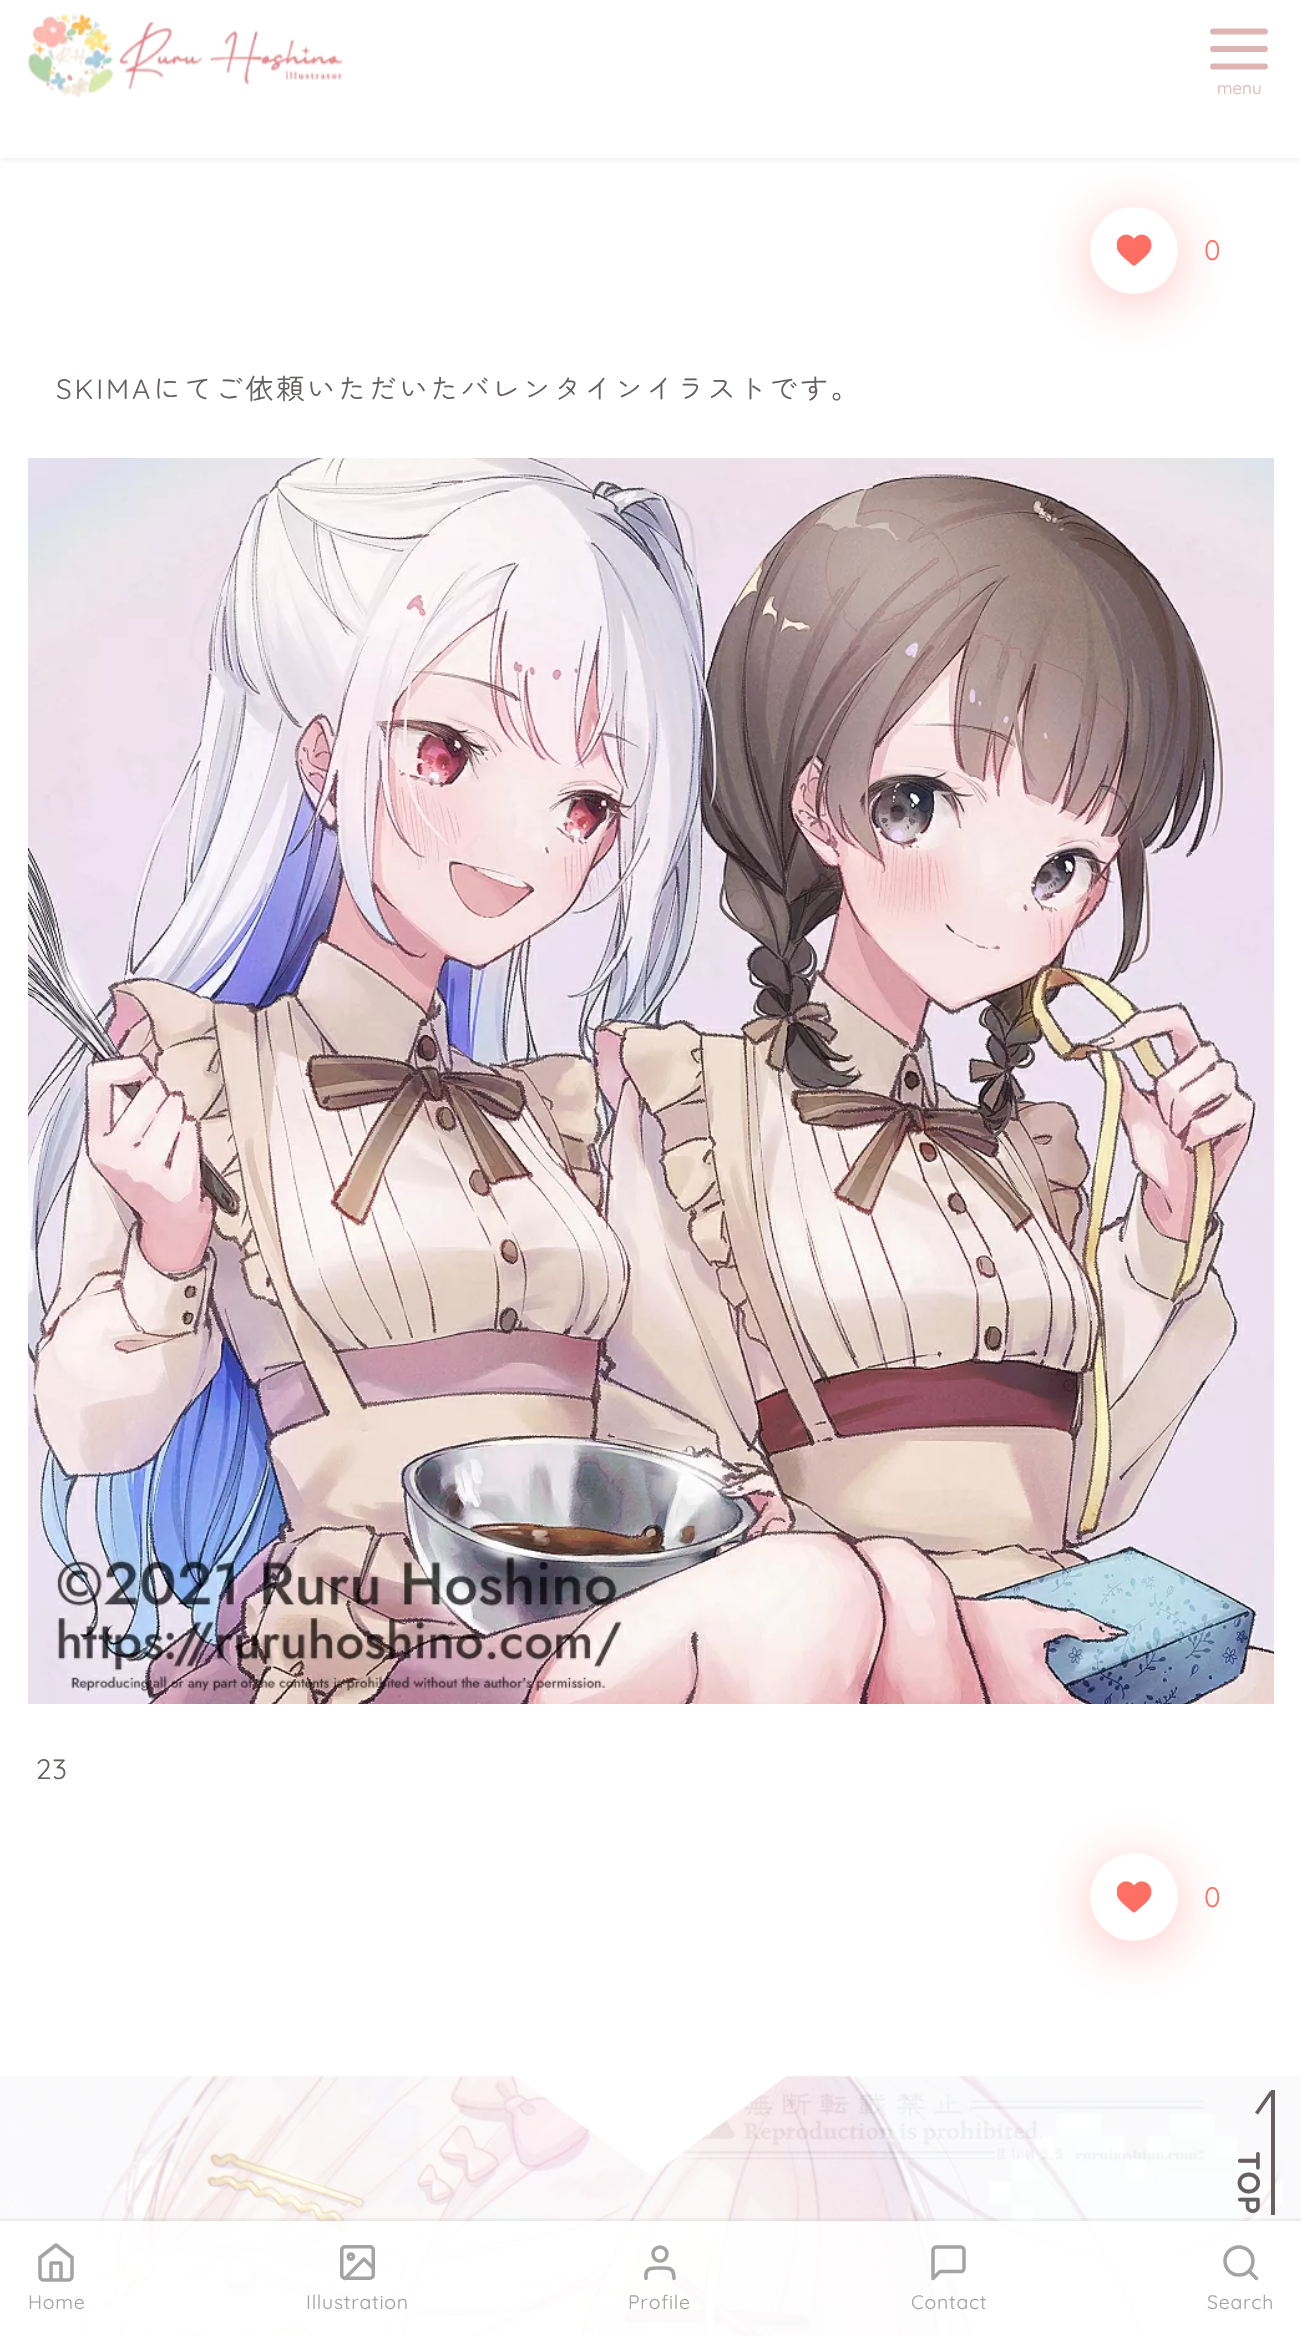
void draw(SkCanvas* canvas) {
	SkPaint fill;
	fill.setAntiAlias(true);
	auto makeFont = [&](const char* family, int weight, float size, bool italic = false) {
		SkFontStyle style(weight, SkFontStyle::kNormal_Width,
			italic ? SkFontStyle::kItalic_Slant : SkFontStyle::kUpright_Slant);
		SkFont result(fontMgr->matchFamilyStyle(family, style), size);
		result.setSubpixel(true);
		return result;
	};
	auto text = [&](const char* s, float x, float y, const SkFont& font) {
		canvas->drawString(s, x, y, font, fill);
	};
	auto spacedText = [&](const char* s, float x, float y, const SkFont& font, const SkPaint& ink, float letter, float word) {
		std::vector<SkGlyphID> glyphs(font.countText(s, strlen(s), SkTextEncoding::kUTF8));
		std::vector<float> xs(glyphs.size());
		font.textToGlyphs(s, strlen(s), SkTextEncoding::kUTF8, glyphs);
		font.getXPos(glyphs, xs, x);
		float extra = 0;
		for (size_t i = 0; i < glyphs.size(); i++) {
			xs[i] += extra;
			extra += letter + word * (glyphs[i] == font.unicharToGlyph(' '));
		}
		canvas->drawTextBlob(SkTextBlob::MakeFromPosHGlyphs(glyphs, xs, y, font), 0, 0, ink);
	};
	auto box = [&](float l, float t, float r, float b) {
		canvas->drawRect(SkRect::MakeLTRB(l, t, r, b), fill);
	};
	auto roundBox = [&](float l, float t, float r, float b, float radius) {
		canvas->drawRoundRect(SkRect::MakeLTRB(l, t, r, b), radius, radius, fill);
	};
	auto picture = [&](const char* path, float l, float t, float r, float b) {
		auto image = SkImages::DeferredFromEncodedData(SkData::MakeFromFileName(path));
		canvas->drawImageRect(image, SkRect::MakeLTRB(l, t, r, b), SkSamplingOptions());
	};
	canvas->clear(0xFFFFFFFF);
	fill.setColor(0x1A000000);
	fill.setMaskFilter(SkMaskFilter::MakeBlur(kNormal_SkBlurStyle, 3.5f));
	canvas->drawRect(SkRect::MakeLTRB(0, 0, 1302, 158), fill);
	fill.setMaskFilter(nullptr);
	fill.setColor(0x66FF6F63);
	fill.setMaskFilter(SkMaskFilter::MakeBlur(kNormal_SkBlurStyle, 26));
	canvas->drawRoundRect(SkRect::MakeLTRB(1090, 215, 1178, 303), 44, 44, fill);
	fill.setMaskFilter(nullptr);
	fill.setColor(0xFFFFFFFF);
	box(0, 0, 1301, 158);
	picture("image0.png", 28, 14, 343, 98);
	fill.setStyle(SkPaint::kStroke_Style);
	fill.setStrokeWidth(5.8f);
	fill.setStrokeCap(SkPaint::kRound_Cap);
	fill.setStrokeJoin(SkPaint::kRound_Join);
	fill.setColor(0xFFDEB3B3);
	canvas->drawPath(SkPathBuilder().moveTo(1213, 49).lineTo(1265, 49).moveTo(1213, 31.5f).lineTo(1265, 31.5f).moveTo(1213, 66.5f).lineTo(1265, 66.5f).detach(), fill);
	fill.setStyle(SkPaint::kFill_Style);
	fill.setColor(0xFFFFFFFF);
	roundBox(1090, 207, 1178, 294, 43.5f);
	picture("image1.png", 1117, 234, 1152, 266);
	picture("image2.png", 28, 458, 1274, 1704);
	fill.setColor(0x66FF6F63);
	fill.setMaskFilter(SkMaskFilter::MakeBlur(kNormal_SkBlurStyle, 26));
	canvas->drawRoundRect(SkRect::MakeLTRB(1090, 1862, 1178, 1950), 44, 44, fill);
	fill.setMaskFilter(nullptr);
	fill.setColor(0xFFFFFFFF);
	canvas->drawCircle(1134, 1897, 44, fill);
	picture("image3.png", 1117, 1881, 1152, 1913);
	picture("image4.png", 0, 2076, 1301, 2336);
	canvas->save();
	canvas->clipRect(SkRect::MakeLTRB(432, 2076, 870, 2251));
	canvas->drawPath(SkPathBuilder().moveTo(788, 2075).lineTo(651, 2176).lineTo(514, 2075).close().detach(), fill);
	canvas->restore();
	fill.setColor(0xFF676060);
	box(1271, 2090, 1275, 2215);
	canvas->drawPath(SkPathBuilder().moveTo(1273, 2093).lineTo(1258, 2114.5f).lineTo(1255, 2112.5f).lineTo(1270, 2091).close().detach(), fill);
	canvas->save();
	canvas->clipRect(SkRect::MakeLTRB(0, 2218, 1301, 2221));
	fill.setColor(0x12000000);
	fill.setMaskFilter(SkMaskFilter::MakeBlur(kNormal_SkBlurStyle, 2));
	canvas->drawRect(SkRect::MakeLTRB(0, 2219, 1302, 2335), fill);
	fill.setMaskFilter(nullptr);
	canvas->restore();
	fill.setColor(0xE6FFFFFF);
	box(0, 2221, 1301, 2336);
	fill.setStyle(SkPaint::kStroke_Style);
	fill.setStrokeWidth(3.5f);
	fill.setColor(0xFFA3A3A3);
	canvas->drawPath(SkPathBuilder().moveTo(40, 2257.5f).lineTo(56, 2245).lineTo(72, 2257.5f).lineTo(72, 2277).cubicTo(72, 2278.5f, 70, 2280, 68, 2280).lineTo(44, 2280).cubicTo(42, 2280, 40, 2278.5f, 40, 2277).close().moveTo(51, 2280).lineTo(51, 2263).lineTo(61, 2263).lineTo(61, 2280).detach(), fill);
	fill.setStrokeCap(SkPaint::kButt_Cap);
	fill.setStrokeJoin(SkPaint::kMiter_Join);
	canvas->drawRoundRect(SkRect::MakeLTRB(341.75f, 2246.75f, 373.25f, 2278.25f), 3.25f, 3.25f, fill);
	canvas->drawCircle(350.9f, 2256.6f, 2.6f, fill);
	fill.setStrokeCap(SkPaint::kRound_Cap);
	fill.setStrokeJoin(SkPaint::kRound_Join);
	canvas->drawPath(SkPathBuilder().moveTo(373, 2268).lineTo(364, 2259).lineTo(345, 2278.5f).detach(), fill);
	fill.setStrokeCap(SkPaint::kButt_Cap);
	fill.setStrokeJoin(SkPaint::kMiter_Join);
	canvas->drawCircle(660, 2254, 7, fill);
	fill.setStrokeCap(SkPaint::kRound_Cap);
	fill.setStrokeJoin(SkPaint::kRound_Join);
	canvas->drawPath(SkPathBuilder().moveTo(674, 2278.5f).lineTo(673.5f, 2273.5f).cubicTo(672, 2267, 665, 2268, 660, 2268).cubicTo(654.5f, 2268, 647.5f, 2267, 646, 2273.5f).lineTo(646, 2278.5f).detach(), fill);
	canvas->drawPath(SkPathBuilder().moveTo(964, 2268).cubicTo(964, 2270, 962.5f, 2271.5f, 961, 2271.5f).lineTo(940, 2271.5f).lineTo(933, 2278.5f).lineTo(933, 2250.5f).cubicTo(933, 2248.5f, 934.5f, 2247, 936, 2247).lineTo(961, 2247).cubicTo(962.5f, 2247, 964, 2248.5f, 964, 2250.5f).close().detach(), fill);
	fill.setStrokeCap(SkPaint::kButt_Cap);
	fill.setStrokeJoin(SkPaint::kMiter_Join);
	canvas->drawCircle(1239, 2261, 14, fill);
	fill.setStrokeCap(SkPaint::kRound_Cap);
	fill.setStrokeJoin(SkPaint::kRound_Join);
	canvas->drawPath(SkPathBuilder().moveTo(1256.5f, 2278.5f).lineTo(1249, 2271).detach(), fill);
	auto font1 = makeFont("Quicksand", 400, 17);
	fill.setStyle(SkPaint::kFill_Style);
	fill.setColor(0xFFDEB3B3);
	text("menu", 1217, 94, font1);
	auto font2 = makeFont("Quicksand", 400, 28);
	fill.setColor(0xFFFF6F63);
	spacedText("0", 1204, 260, font2, fill, 0.75f, 0);
	fill.setColor(0xFF676060);
	spacedText("SKIM", 56, 399, font2, fill, 2.8f, 0);
	auto font3 = makeFont("Zen Maru Gothic", 400, 28);
	spacedText("Aにてご依頼いただいたバレンタインイラストです。", 132, 399, font3, fill, 2.8f, 0);
	spacedText("23", 36, 1779, font2, fill, 0.75f, 0);
	fill.setColor(0xFFFF6F63);
	spacedText("0", 1204, 1907, font2, fill, 0.75f, 0);
	auto font4 = makeFont("Quicksand", 700, 31);
	fill.setColor(0xFF676060);
	canvas->save();
	canvas->rotate(90, 1238, 2151);
	spacedText("TOP", 1238, 2151, font4, fill, 0.75f, 0);
	canvas->restore();
	auto font5 = makeFont("Quicksand", 400, 19.5f);
	fill.setColor(0xFFA3A3A3);
	spacedText("Home", 28, 2309, font5, fill, 0.75f, 0);
	spacedText("Illustration", 306, 2309, font5, fill, 0.75f, 0);
	spacedText("Profile", 628, 2309, font5, fill, 0.75f, 0);
	spacedText("Contact", 911, 2309, font5, fill, 0.75f, 0);
	spacedText("Search", 1207, 2309, font5, fill, 0.75f, 0);
}
